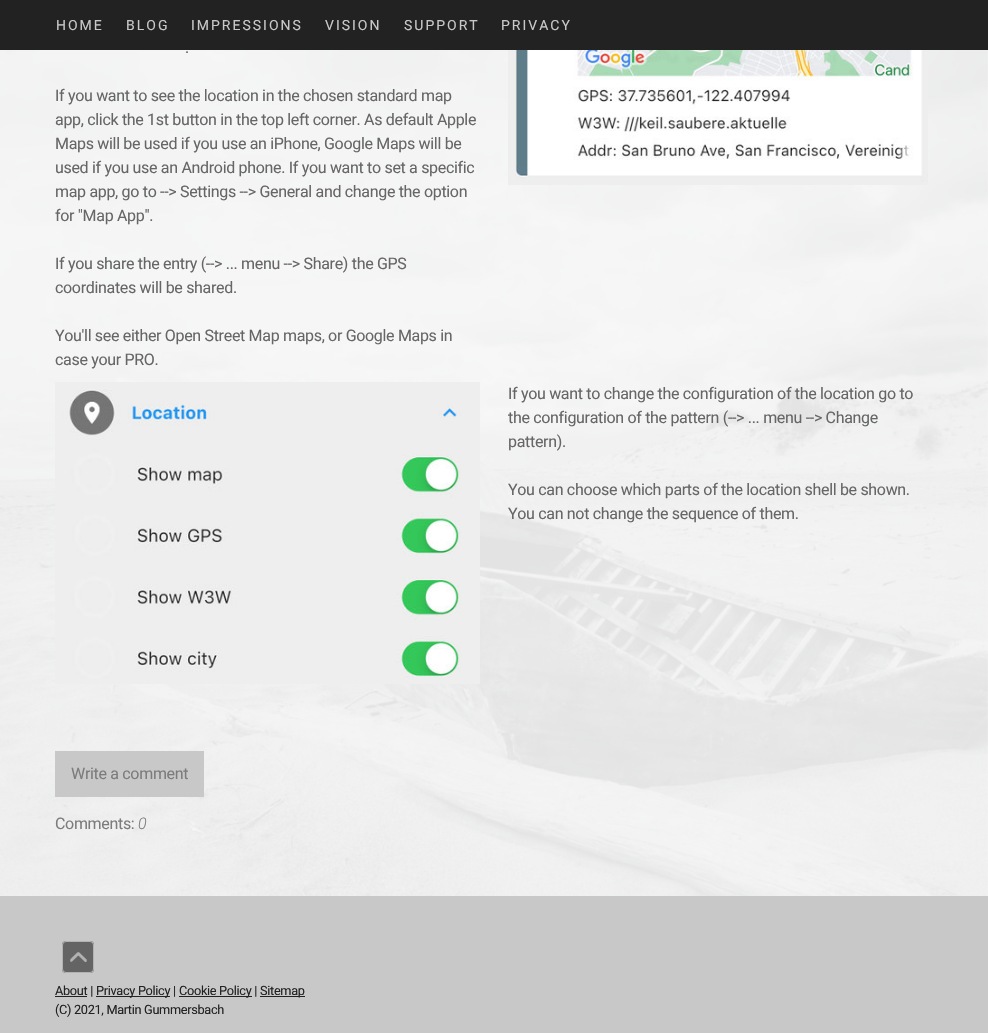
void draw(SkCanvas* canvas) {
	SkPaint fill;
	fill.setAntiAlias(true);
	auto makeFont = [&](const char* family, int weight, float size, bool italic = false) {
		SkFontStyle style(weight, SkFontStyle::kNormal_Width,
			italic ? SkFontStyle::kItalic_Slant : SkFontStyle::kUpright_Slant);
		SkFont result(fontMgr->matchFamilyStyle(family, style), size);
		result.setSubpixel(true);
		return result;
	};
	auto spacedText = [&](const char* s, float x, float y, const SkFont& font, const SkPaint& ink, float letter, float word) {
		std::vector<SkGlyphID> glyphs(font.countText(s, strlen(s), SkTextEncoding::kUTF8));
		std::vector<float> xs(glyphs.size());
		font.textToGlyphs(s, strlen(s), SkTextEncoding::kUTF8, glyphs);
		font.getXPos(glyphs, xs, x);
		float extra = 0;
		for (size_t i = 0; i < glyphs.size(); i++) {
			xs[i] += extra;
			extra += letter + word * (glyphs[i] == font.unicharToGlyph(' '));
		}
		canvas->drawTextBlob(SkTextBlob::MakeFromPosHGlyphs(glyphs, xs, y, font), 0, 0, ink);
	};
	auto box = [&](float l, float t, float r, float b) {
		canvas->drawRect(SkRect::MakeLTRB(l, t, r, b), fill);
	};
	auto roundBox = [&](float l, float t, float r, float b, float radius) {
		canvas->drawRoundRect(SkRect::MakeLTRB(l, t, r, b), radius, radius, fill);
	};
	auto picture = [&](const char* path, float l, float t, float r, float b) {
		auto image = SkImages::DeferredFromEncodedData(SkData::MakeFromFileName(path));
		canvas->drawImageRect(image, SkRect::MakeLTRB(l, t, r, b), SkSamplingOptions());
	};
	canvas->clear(0xFFFFFFFF);
	fill.setColor(0xFF222222);
	box(0, 0, 988, 50);
	picture("image0.png", 0, 50, 988, 896);
	fill.setColor(0xE6F6F6F6);
	box(0, 50, 988, 896);
	picture("image1.png", 508, 50, 928, 185);
	picture("image2.png", 55, 382, 480, 684);
	fill.setColor(0xFFC8C8C8);
	box(55, 751, 204, 797);
	box(0, 896, 988, 1033);
	fill.setColor(0xFF222222);
	box(55, 996, 87, 997);
	box(96, 996, 170, 997);
	box(179, 996, 252, 997);
	box(260, 996, 305, 997);
	fill.setColor(0xFF646464);
	roundBox(62, 941, 94, 973, 4);
	fill.setStyle(SkPaint::kStroke_Style);
	fill.setStrokeWidth(1);
	fill.setColor(0x80FFFFFF);
	canvas->drawRoundRect(SkRect::MakeLTRB(62.5f, 941.5f, 93.5f, 972.5f), 3.5f, 3.5f, fill);
	picture("image3.png", 70, 952, 87, 962);
	auto font1 = makeFont("Roboto", 400, 14);
	fill.setStyle(SkPaint::kFill_Style);
	fill.setColor(0xFFC8C8C8);
	spacedText("HOME", 56, 30, font1, fill, 2, 0);
	spacedText("BLOG", 126, 30, font1, fill, 2, 0);
	spacedText("IMPRESSIONS", 191, 30, font1, fill, 2, 0);
	spacedText("VISION", 325, 30, font1, fill, 2, 0);
	spacedText("SUPPORT", 404, 30, font1, fill, 2, 0);
	spacedText("PRIVACY", 501, 30, font1, fill, 2, 0);
	auto font2 = makeFont("Roboto", 400, 16);
	fill.setColor(0xFF666666);
	spacedText(".", 185, 53, font2, fill, -0.32f, 0);
	spacedText("If you want to see the location in the chosen standard map", 55, 101, font2, fill, -0.32f, 0);
	spacedText("app, click the 1st button in the top left corner. As default Apple", 55, 125, font2, fill, -0.32f, 0);
	spacedText("Maps will be used if you use an iPhone, Google Maps will be", 55, 149, font2, fill, -0.32f, 0);
	spacedText("used if you use an Android phone. If you want to set a specific", 55, 173, font2, fill, -0.32f, 0);
	spacedText("map app, go to --> Settings --> General and change the option", 55, 197, font2, fill, -0.32f, 0);
	spacedText("for \"Map App\".", 55, 221, font2, fill, -0.32f, 0);
	spacedText("If you share the entry (--> ... menu --> Share) the GPS", 55, 269, font2, fill, -0.32f, 0);
	spacedText("coordinates will be shared.", 55, 293, font2, fill, -0.32f, 0);
	spacedText("You'll see either Open Street Map maps, or Google Maps in", 55, 341, font2, fill, -0.32f, 0);
	spacedText("case your PRO.", 55, 365, font2, fill, -0.32f, 0);
	spacedText("If you want to change the configuration of the location go to", 508, 399, font2, fill, -0.32f, 0);
	spacedText("the configuration of the pattern (--> ... menu --> Change", 508, 423, font2, fill, -0.32f, 0);
	spacedText("pattern).", 508, 447, font2, fill, -0.32f, 0);
	spacedText("You can choose which parts of the location shell be shown.", 508, 495, font2, fill, -0.32f, 0);
	spacedText("You can not change the sequence of them.", 508, 519, font2, fill, -0.32f, 0);
	fill.setColor(0xFF7C7C7C);
	spacedText("Write a comment", 71, 779, font2, fill, -0.32f, 0);
	spacedText("Comments:", 55, 829, font2, fill, -0.32f, 0);
	auto font3 = makeFont("Roboto", 300, 16, true);
	spacedText("0", 138, 829, font3, fill, -0.32f, 0);
	auto font4 = makeFont("Roboto", 400, 12.75f);
	fill.setColor(0xFF222222);
	spacedText("About |", 55, 995, font4, fill, -0.32f, 0);
	spacedText("Privacy Policy |", 96, 995, font4, fill, -0.32f, 0);
	spacedText("Cookie Policy |", 179, 995, font4, fill, -0.32f, 0);
	spacedText("Sitemap", 260, 995, font4, fill, -0.32f, 0);
	spacedText("(C) 2021, Martin Gummersbach", 55, 1014, font4, fill, -0.32f, 0);
}
